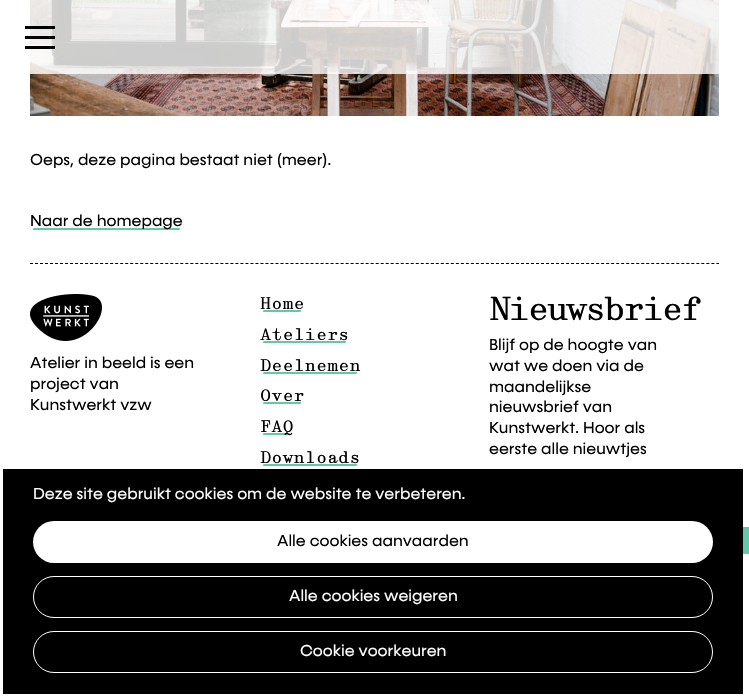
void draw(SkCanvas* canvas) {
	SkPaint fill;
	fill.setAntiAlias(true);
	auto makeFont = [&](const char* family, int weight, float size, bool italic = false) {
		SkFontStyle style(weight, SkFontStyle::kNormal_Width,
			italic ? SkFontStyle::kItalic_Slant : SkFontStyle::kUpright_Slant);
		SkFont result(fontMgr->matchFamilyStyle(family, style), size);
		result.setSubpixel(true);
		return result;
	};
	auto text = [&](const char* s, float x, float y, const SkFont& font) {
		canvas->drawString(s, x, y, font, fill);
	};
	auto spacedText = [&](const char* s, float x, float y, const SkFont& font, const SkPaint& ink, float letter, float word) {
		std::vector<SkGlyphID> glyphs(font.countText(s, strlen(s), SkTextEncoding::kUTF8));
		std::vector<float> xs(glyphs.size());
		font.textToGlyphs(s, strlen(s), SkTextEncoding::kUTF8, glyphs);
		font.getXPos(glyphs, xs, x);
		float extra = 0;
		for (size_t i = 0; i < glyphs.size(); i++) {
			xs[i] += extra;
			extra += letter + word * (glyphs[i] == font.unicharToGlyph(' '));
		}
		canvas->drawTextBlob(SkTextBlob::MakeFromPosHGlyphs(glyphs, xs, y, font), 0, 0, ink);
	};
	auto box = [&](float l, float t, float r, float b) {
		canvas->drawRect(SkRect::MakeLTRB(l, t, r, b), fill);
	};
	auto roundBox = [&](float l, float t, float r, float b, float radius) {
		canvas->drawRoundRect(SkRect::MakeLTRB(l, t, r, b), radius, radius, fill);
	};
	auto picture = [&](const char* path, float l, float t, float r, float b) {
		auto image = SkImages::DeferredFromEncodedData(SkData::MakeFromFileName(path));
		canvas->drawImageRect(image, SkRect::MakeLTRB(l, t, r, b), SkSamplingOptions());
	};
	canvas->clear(0xFFFFFFFF);
	picture("image0.png", 30, 0, 719, 116);
	fill.setColor(0xCCFFFFFF);
	box(30, 0, 719, 74);
	fill.setColor(0xFF000000);
	box(25, 46, 55, 49);
	box(25, 26, 55, 29);
	box(25, 36, 55, 39);
	fill.setColor(0xFF61C9A8);
	canvas->drawPath(SkPathBuilder().moveTo(34.5f, 228).lineTo(179.5f, 228).cubicTo(180, 228, 180, 228, 180, 228.5f).cubicTo(180, 229.5f, 179.5f, 230, 178.5f, 230).lineTo(33.5f, 230).cubicTo(33, 230, 33, 230, 33, 229.5f).cubicTo(33, 228.5f, 33.5f, 228, 34.5f, 228).close().detach(), fill);
	fill.setStyle(SkPaint::kStroke_Style);
	fill.setStrokeWidth(1);
	fill.setColor(0xFF000000);
	fill.setPathEffect(SkDashPathEffect::Make({{3, 2.01f}}, 0));
	canvas->drawPath(SkPathBuilder().moveTo(30, 263.5f).lineTo(719, 263.5f).detach(), fill);
	fill.setPathEffect(nullptr);
	picture("image1.png", 30, 294, 102, 341);
	fill.setStyle(SkPaint::kFill_Style);
	fill.setColor(0xFF61C9A8);
	canvas->drawPath(SkPathBuilder().moveTo(264.5f, 310).lineTo(300.5f, 310).cubicTo(301, 310, 301, 310, 301, 310.5f).cubicTo(301, 311.5f, 300.5f, 312, 299.5f, 312).lineTo(263.5f, 312).cubicTo(263, 312, 263, 312, 263, 311.5f).cubicTo(263, 310.5f, 263.5f, 310, 264.5f, 310).close().detach(), fill);
	canvas->drawPath(SkPathBuilder().moveTo(264.5f, 341).lineTo(345.5f, 341).cubicTo(346, 341, 346, 341, 346, 341.5f).cubicTo(346, 342.5f, 345.5f, 343, 344.5f, 343).lineTo(263.5f, 343).cubicTo(263, 343, 263, 343, 263, 342.5f).cubicTo(263, 341.5f, 263.5f, 341, 264.5f, 341).close().detach(), fill);
	canvas->drawPath(SkPathBuilder().moveTo(264.5f, 372).lineTo(356.5f, 372).cubicTo(357, 372, 357, 372, 357, 372.5f).cubicTo(357, 373.5f, 356.5f, 374, 355.5f, 374).lineTo(263.5f, 374).cubicTo(263, 374, 263, 374, 263, 373.5f).cubicTo(263, 372.5f, 263.5f, 372, 264.5f, 372).close().detach(), fill);
	canvas->drawPath(SkPathBuilder().moveTo(264.5f, 402).lineTo(300.5f, 402).cubicTo(301, 402, 301, 402, 301, 402.5f).cubicTo(301, 403.5f, 300.5f, 404, 299.5f, 404).lineTo(263.5f, 404).cubicTo(263, 404, 263, 404, 263, 403.5f).cubicTo(263, 402.5f, 263.5f, 402, 264.5f, 402).close().detach(), fill);
	canvas->drawPath(SkPathBuilder().moveTo(264.5f, 433).lineTo(289.5f, 433).cubicTo(290, 433, 290, 433, 290, 433.5f).cubicTo(290, 434.5f, 289.5f, 435, 288.5f, 435).lineTo(263.5f, 435).cubicTo(263, 435, 263, 435, 263, 434.5f).cubicTo(263, 433.5f, 263.5f, 433, 264.5f, 433).close().detach(), fill);
	canvas->drawPath(SkPathBuilder().moveTo(264.5f, 464).lineTo(356.5f, 464).cubicTo(357, 464, 357, 464, 357, 464.5f).cubicTo(357, 465.5f, 356.5f, 466, 355.5f, 466).lineTo(263.5f, 466).cubicTo(263, 466, 263, 466, 263, 465.5f).cubicTo(263, 464.5f, 263.5f, 464, 264.5f, 464).close().detach(), fill);
	box(743, 527, 749, 554);
	fill.setColor(0xFF000000);
	box(3, 469, 743, 694);
	fill.setColor(0xFFFFFFFF);
	roundBox(33, 521, 713, 563, 21);
	fill.setStyle(SkPaint::kStroke_Style);
	canvas->drawRoundRect(SkRect::MakeLTRB(33.5f, 576.5f, 712.5f, 617.5f), 20.5f, 20.5f, fill);
	canvas->drawRoundRect(SkRect::MakeLTRB(33.5f, 631.5f, 712.5f, 672.5f), 20.5f, 20.5f, fill);
	auto font1 = makeFont("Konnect", 400, 16);
	fill.setStyle(SkPaint::kFill_Style);
	fill.setColor(0xFF000000);
	text("Oeps, deze pagina bestaat niet (meer).", 30, 165, font1);
	text("Naar de homepage", 30, 226, font1);
	text("Atelier in beeld is een", 30, 368, font1);
	text("project van", 30, 389, font1);
	text("Kunstwerkt vzw", 30, 410, font1);
	auto font2 = makeFont("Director", 400, 16);
	text("Home", 260, 309, font2);
	text("Ateliers", 260, 340, font2);
	text("Deelnemen", 260, 371, font2);
	text("Over", 260, 401, font2);
	text("FAQ", 260, 432, font2);
	text("Downloads", 260, 463, font2);
	auto font3 = makeFont("Director", 400, 32);
	spacedText("Nieuwsbrief", 489, 320, font3, fill, -3.25f, 0);
	text("Blijf op de hoogte van", 489, 350, font1);
	text("wat we doen via de", 489, 371, font1);
	text("maandelijkse", 489, 392, font1);
	text("nieuwsbrief van", 489, 412, font1);
	text("Kunstwerkt. Hoor als", 489, 433, font1);
	text("eerste alle nieuwtjes", 489, 454, font1);
	fill.setColor(0xFFFFFFFF);
	text("Deze site gebruikt cookies om de website te verbeteren.", 33, 499, font1);
	fill.setColor(0xFF000000);
	text("Alle cookies aanvaarden", 277, 546, font1);
	fill.setColor(0xFFFFFFFF);
	text("Alle cookies weigeren", 289, 601, font1);
	text("Cookie voorkeuren", 300, 656, font1);
}
